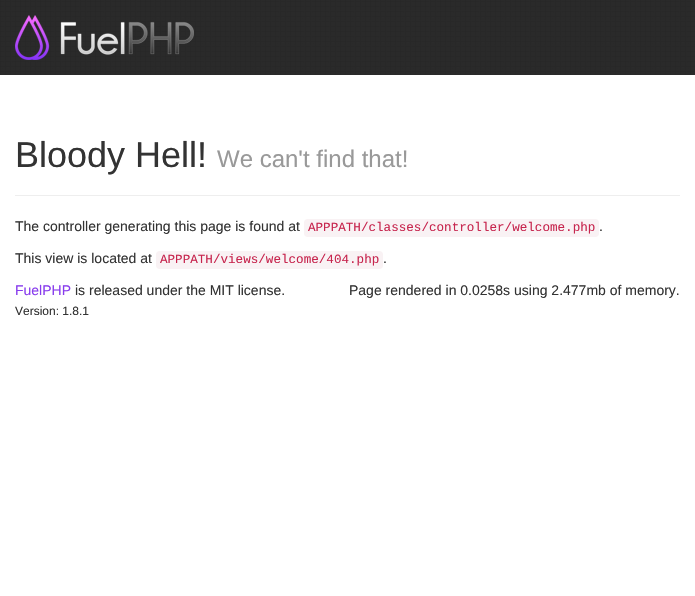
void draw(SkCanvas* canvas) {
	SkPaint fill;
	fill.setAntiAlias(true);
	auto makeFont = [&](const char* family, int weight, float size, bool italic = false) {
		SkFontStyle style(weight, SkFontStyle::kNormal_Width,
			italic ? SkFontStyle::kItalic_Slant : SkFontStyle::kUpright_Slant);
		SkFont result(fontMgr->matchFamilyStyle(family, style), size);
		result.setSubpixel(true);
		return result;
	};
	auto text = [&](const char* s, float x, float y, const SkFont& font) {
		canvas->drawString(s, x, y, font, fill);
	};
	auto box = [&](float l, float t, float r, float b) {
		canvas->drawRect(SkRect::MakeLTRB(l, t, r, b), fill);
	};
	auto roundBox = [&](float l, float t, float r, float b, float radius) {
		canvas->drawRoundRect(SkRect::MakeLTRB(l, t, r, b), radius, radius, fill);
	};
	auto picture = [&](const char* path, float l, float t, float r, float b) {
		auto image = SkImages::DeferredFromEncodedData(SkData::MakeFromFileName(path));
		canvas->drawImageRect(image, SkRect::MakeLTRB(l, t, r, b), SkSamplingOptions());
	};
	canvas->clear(0xFFFFFFFF);
	picture("image0.png", 0, 0, 695, 75);
	picture("image1.png", 15, 15, 194, 60);
	fill.setColor(0xFFEEEEEE);
	box(15, 195, 680, 196);
	fill.setColor(0xFFF9F2F4);
	roundBox(304, 219, 599, 237, 4);
	roundBox(156, 251, 383, 269, 4);
	auto font1 = makeFont("Liberation Sans", 400, 36);
	fill.setColor(0xFF333333);
	text("Bloody Hell!", 15, 167, font1);
	auto font2 = makeFont("Liberation Sans", 400, 24);
	fill.setColor(0xFF999999);
	text("We can't find that!", 217, 167, font2);
	auto font3 = makeFont("Liberation Sans", 400, 14);
	fill.setColor(0xFF333333);
	text("The controller generating this page is found at", 15, 231, font3);
	auto font4 = makeFont("Liberation Mono", 400, 12.6f);
	fill.setColor(0xFFC7254E);
	text("APPPATH/classes/controller/welcome.php", 308, 231, font4);
	fill.setColor(0xFF333333);
	text(".", 599, 231, font3);
	text("This view is located at", 15, 263, font3);
	fill.setColor(0xFFC7254E);
	text("APPPATH/views/welcome/404.php", 160, 263, font4);
	fill.setColor(0xFF333333);
	text(".", 383, 263, font3);
	fill.setColor(0xFF883CED);
	text("FuelPHP", 15, 295, font3);
	fill.setColor(0xFF333333);
	text("is released under the MIT license.", 75, 295, font3);
	auto font5 = makeFont("Liberation Sans", 400, 12);
	text("Version: 1.8.1", 15, 315, font5);
	text("Page rendered in 0.0258s using 2.477mb of memory.", 349, 295, font3);
}
